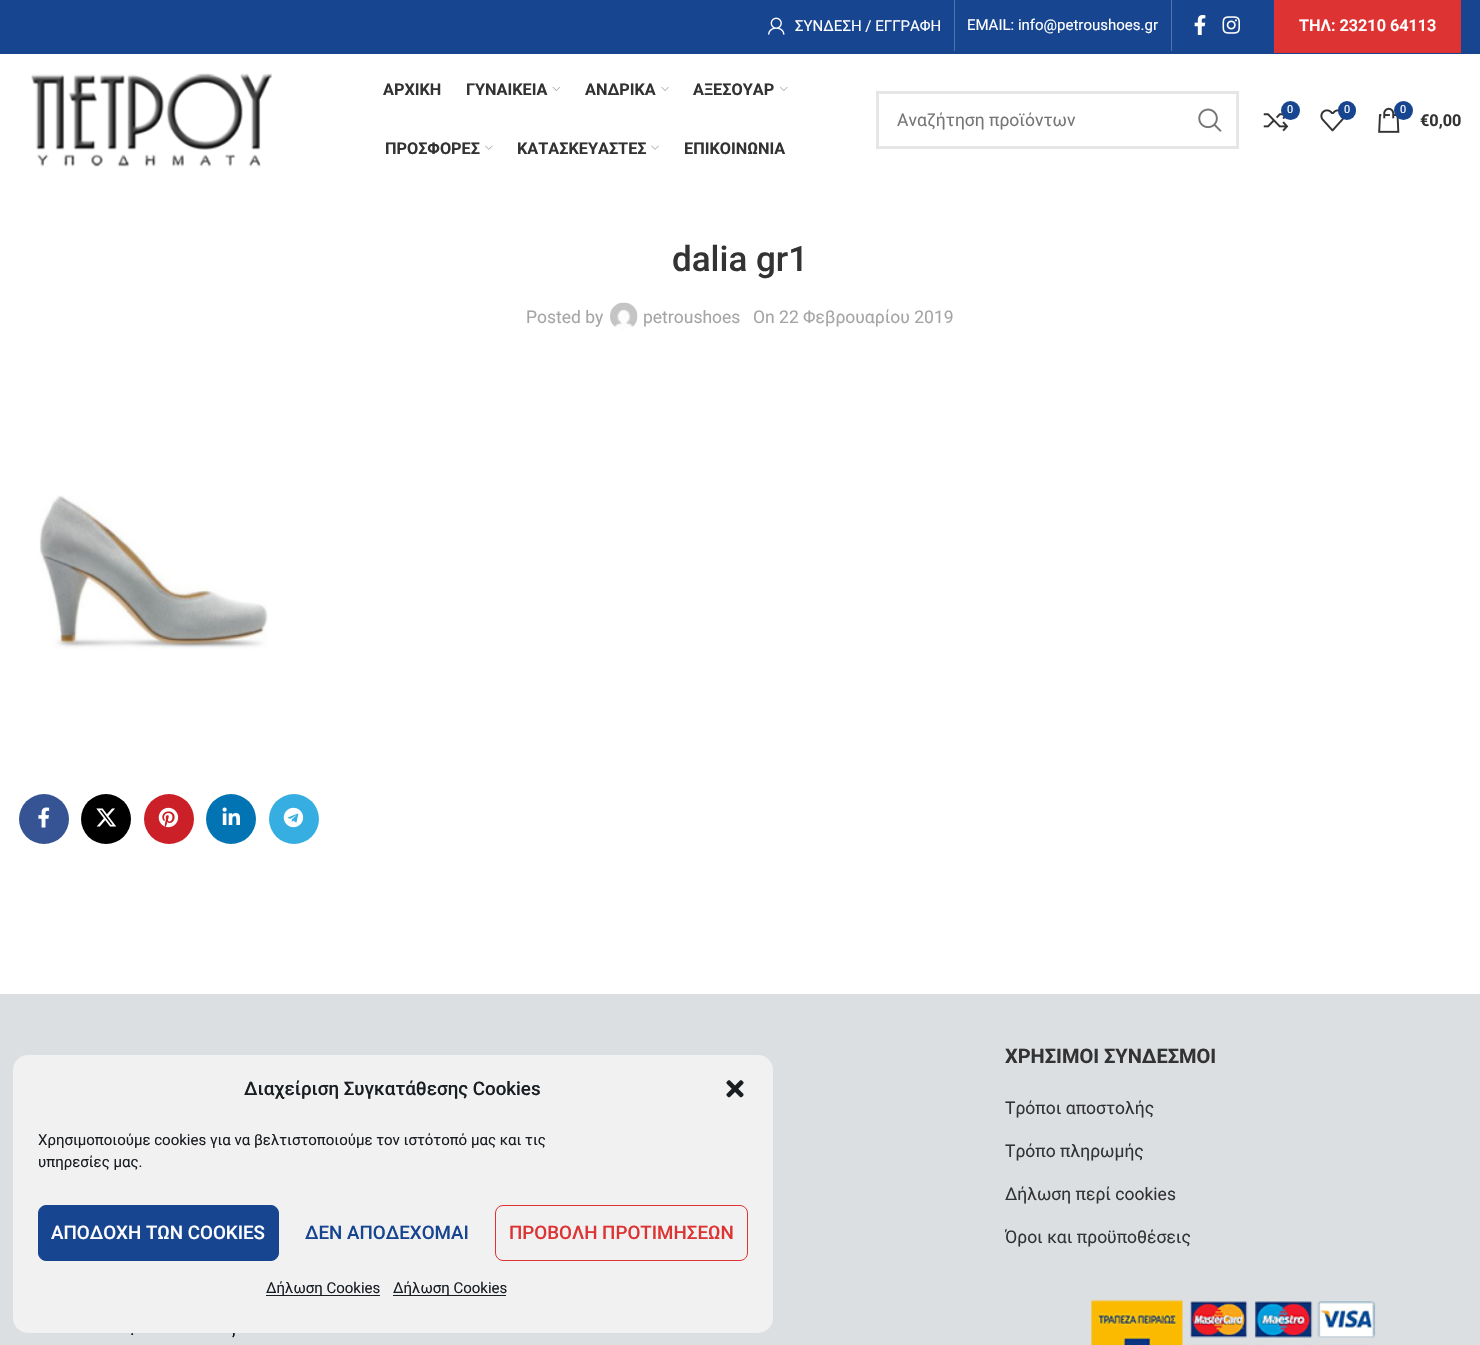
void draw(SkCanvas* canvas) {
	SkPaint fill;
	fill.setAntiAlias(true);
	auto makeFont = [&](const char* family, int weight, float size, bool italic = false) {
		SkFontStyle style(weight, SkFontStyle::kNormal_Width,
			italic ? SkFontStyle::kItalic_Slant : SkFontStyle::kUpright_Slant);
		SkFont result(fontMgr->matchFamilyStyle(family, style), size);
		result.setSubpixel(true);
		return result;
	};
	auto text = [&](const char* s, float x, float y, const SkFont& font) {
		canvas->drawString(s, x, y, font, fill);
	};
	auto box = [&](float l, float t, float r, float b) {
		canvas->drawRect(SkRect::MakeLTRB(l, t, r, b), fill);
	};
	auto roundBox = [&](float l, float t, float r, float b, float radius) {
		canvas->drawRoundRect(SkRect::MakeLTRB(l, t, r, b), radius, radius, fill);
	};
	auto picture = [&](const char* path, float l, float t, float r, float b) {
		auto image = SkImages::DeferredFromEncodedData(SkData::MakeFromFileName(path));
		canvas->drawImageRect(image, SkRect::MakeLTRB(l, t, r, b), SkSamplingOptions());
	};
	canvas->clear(0xFFFFFFFF);
	fill.setColor(0xFF17458F);
	box(0, 0, 1480, 54);
	picture("image0.png", 768, 17, 785, 35);
	fill.setColor(0xFF5174AB);
	box(954, 0, 955, 51);
	box(1171, 0, 1172, 51);
	picture("image1.png", 1194, 15, 1206, 35);
	picture("image2.png", 1222, 16, 1240, 34);
	fill.setColor(0xFFDD3333);
	box(1274, 0, 1461, 53);
	picture("image3.png", 31, 73, 272, 167);
	picture("image4.png", 552, 87, 560, 91);
	picture("image5.png", 661, 87, 669, 91);
	picture("image6.png", 780, 87, 788, 91);
	picture("image7.png", 485, 145, 493, 150);
	picture("image8.png", 651, 145, 659, 150);
	fill.setStyle(SkPaint::kStroke_Style);
	fill.setStrokeWidth(3);
	fill.setColor(0xFFE6E6E6);
	canvas->drawRect(SkRect::MakeLTRB(877.5f, 92.5f, 1237.5f, 147.5f), fill);
	picture("image9.png", 1198, 108, 1222, 132);
	picture("image10.png", 1263, 113, 1289, 132);
	fill.setStyle(SkPaint::kFill_Style);
	fill.setColor(0xFF17458F);
	canvas->drawCircle(1290.5f, 110.5f, 9.5f, fill);
	picture("image11.png", 1320, 109, 1344, 132);
	roundBox(1338, 101, 1356, 120, 9);
	picture("image12.png", 1378, 107, 1400, 133);
	canvas->drawCircle(1403.5f, 110.5f, 9.5f, fill);
	picture("image13.png", 610, 302, 638, 330);
	picture("image14.png", 39, 495, 268, 650);
	fill.setColor(0xFF365493);
	canvas->drawCircle(44, 819, 25, fill);
	picture("image15.png", 38, 807, 50, 828);
	fill.setColor(0xFF000000);
	canvas->drawCircle(106, 819, 25, fill);
	picture("image16.png", 96, 808, 117, 827);
	fill.setColor(0xFFCB2027);
	canvas->drawCircle(169, 819, 25, fill);
	picture("image17.png", 158, 807, 179, 828);
	fill.setColor(0xFF0274B3);
	canvas->drawCircle(231, 819, 25, fill);
	picture("image18.png", 222, 807, 240, 825);
	fill.setColor(0xFF37AEE2);
	canvas->drawCircle(294, 819, 25, fill);
	picture("image19.png", 283, 807, 304, 828);
	fill.setColor(0xFFDBDFE2);
	box(0, 994, 1480, 1345);
	picture("image20.png", 1091, 1300, 1376, 1345);
	fill.setColor(0xFFF1F1F1);
	roundBox(13, 1055, 773, 1333, 15);
	picture("image21.png", 726, 1080, 744, 1098);
	fill.setColor(0xFF17458F);
	canvas->drawRoundRect(SkRect::MakeLTRB(38.5f, 1205.5f, 278.5f, 1260.5f), 7.5f, 7.5f, fill);
	fill.setStyle(SkPaint::kStroke_Style);
	fill.setStrokeWidth(1);
	canvas->drawRoundRect(SkRect::MakeLTRB(38.5f, 1205.5f, 278.5f, 1260.5f), 7.5f, 7.5f, fill);
	fill.setColor(0xFFDD3333);
	canvas->drawRoundRect(SkRect::MakeLTRB(495.5f, 1205.5f, 747.5f, 1260.5f), 7.5f, 7.5f, fill);
	fill.setStyle(SkPaint::kFill_Style);
	fill.setColor(0xFF191E23);
	box(266, 1295, 380, 1296);
	box(393, 1295, 506, 1296);
	auto font1 = makeFont("Roboto", 400, 15);
	fill.setColor(0xFFFFFFFF);
	text("ΣΥΝΔΕΣΗ / ΕΓΓΡΑΦΗ", 795, 31, font1);
	text("EMAIL: info@petroushoes.gr", 967, 30, font1);
	auto font2 = makeFont("Roboto", 600, 16.25f);
	text("ΤΗΛ: 23210 64113", 1299, 31, font2);
	auto font3 = makeFont("Roboto", 700, 16.25f);
	fill.setColor(0xFF333333);
	text("ΑΡΧΙΚΗ", 383, 95, font3);
	text("ΓΥΝΑΙΚΕΙΑ", 466, 95, font3);
	text("ΑΝΔΡΙΚΑ", 585, 95, font3);
	text("ΑΞΕΣΟΥΑΡ", 693, 95, font3);
	text("ΠΡΟΣΦΟΡΕΣ", 385, 154, font3);
	text("ΚΑΤΑΣΚΕΥΑΣΤΕΣ", 517, 154, font3);
	text("ΕΠΙΚΟΙΝΩΝΙΑ", 684, 154, font3);
	auto font4 = makeFont("Roboto", 400, 17.5f);
	fill.setColor(0xFF767676);
	text("Αναζήτηση προϊόντων", 897, 126, font4);
	auto font5 = makeFont("Roboto", 400, 11);
	fill.setColor(0xFFFFFFFF);
	text("0", 1287, 113, font5);
	text("0", 1344, 113, font5);
	text("0", 1400, 113, font5);
	fill.setColor(0xFF333333);
	text("€0,00", 1420, 126, font3);
	auto font6 = makeFont("Roboto", 500, 35);
	text("dalia gr1", 672, 271, font6);
	fill.setColor(0xFFA5A5A5);
	text("Posted by", 526, 323, font4);
	text("petroushoes", 643, 323, font4);
	text("On 22 Φεβρουαρίου 2019", 753, 323, font4);
	auto font7 = makeFont("Roboto", 700, 20);
	fill.setColor(0xFF333333);
	text("ΧΡΗΣΙΜΟΙ ΣΥΝΔΕΣΜΟΙ", 1005, 1063, font7);
	text("Τρόποι αποστολής", 1005, 1114, font4);
	text("Τρόπο πληρωμής", 1005, 1157, font4);
	text("Δήλωση περί cookies", 1005, 1200, font4);
	text("Όροι και προϋποθέσεις", 1005, 1243, font4);
	fill.setColor(0xFF121212);
	text(".", 130, 1335, font4);
	text(",", 232, 1335, font4);
	auto font8 = makeFont("Roboto", 500, 18.75f);
	fill.setColor(0xFF191E23);
	text("Διαχείριση Συγκατάθεσης Cookies", 244, 1095, font8);
	text("Χρησιμοποιούμε cookies για να βελτιστοποιούμε τον ιστότοπό μας και τις", 38, 1145, font1);
	text("υπηρεσίες μας.", 38, 1167, font1);
	fill.setColor(0xFFFFFFFF);
	text("ΑΠΟΔΟΧΗ ΤΩΝ COOKIES", 51, 1239, font8);
	fill.setColor(0xFF17458F);
	text("ΔΕΝ ΑΠΟΔΕΧΟΜΑΙ", 305, 1239, font8);
	fill.setColor(0xFFDD3333);
	text("ΠΡΟΒΟΛΗ ΠΡΟΤΙΜΗΣΕΩΝ", 509, 1239, font8);
	fill.setColor(0xFF191E23);
	text("Δήλωση Cookies", 266, 1293, font1);
	text("Δήλωση Cookies", 393, 1293, font1);
}
